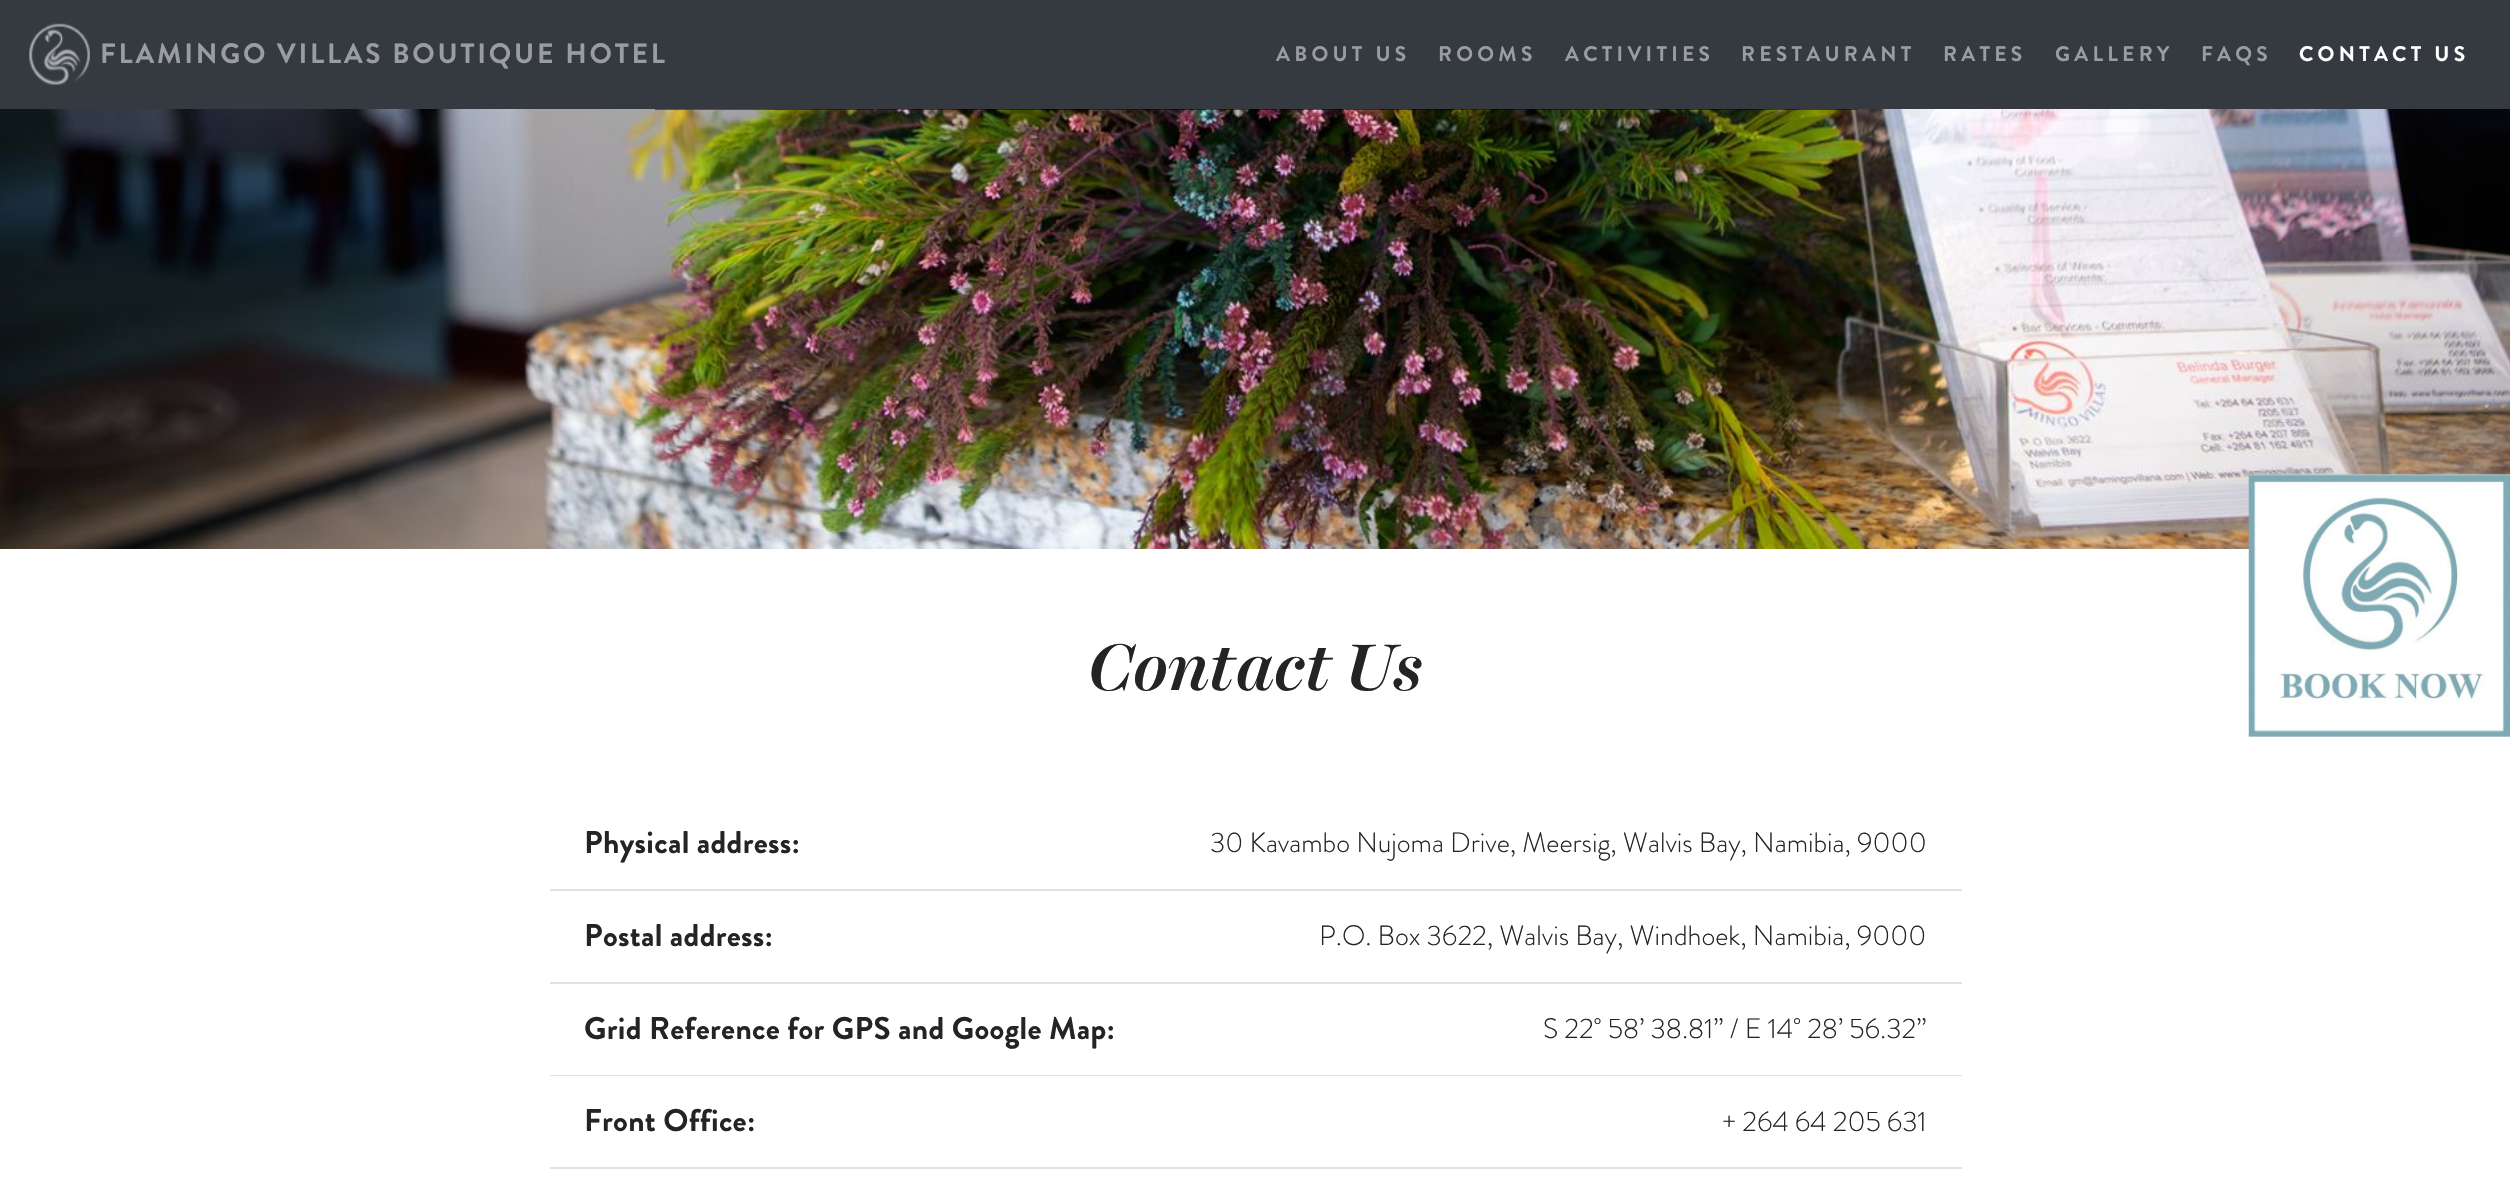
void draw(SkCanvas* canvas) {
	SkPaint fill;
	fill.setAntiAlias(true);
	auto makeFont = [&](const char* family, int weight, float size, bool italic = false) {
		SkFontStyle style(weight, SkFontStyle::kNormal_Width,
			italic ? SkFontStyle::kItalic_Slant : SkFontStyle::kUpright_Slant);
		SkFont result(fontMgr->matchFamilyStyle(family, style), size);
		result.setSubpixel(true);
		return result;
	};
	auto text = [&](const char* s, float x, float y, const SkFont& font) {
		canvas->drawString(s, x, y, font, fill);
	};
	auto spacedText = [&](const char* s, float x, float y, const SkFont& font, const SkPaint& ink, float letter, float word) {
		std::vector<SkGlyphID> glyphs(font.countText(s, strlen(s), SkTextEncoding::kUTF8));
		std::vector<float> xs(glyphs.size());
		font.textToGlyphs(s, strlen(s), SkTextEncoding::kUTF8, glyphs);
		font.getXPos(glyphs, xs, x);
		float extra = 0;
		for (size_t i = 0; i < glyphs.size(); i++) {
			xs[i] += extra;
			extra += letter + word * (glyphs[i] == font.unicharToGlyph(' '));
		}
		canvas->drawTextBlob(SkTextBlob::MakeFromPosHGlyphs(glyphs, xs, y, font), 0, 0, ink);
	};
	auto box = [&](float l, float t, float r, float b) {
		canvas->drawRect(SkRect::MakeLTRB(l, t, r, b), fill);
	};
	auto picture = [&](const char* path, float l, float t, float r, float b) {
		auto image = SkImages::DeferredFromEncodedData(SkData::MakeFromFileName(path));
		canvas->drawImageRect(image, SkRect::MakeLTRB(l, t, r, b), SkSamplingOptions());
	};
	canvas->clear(0xFFFFFFFF);
	fill.setColor(0xFF343A40);
	box(0, 0, 2510, 109);
	picture("image0.png", 29, 23, 90, 85);
	picture("image2.png", 0, 109, 2510, 549);
	picture("image1.png", 2248, 473, 2510, 737);
	fill.setColor(0x80000000);
	box(655, 109, 1857, 110);
	fill.setColor(0xFFDEE2E6);
	box(550, 889, 1962, 891);
	box(550, 982, 1962, 984);
	box(550, 1075, 1962, 1076);
	box(550, 1167, 1962, 1169);
	auto font1 = makeFont("Brandon Grotesque", 700, 28);
	fill.setColor(0xFF9A9DA0);
	spacedText("FLAMINGO VILLAS BOUTIQUE HOTEL", 100, 63, font1, fill, 2.8f, 0);
	auto font2 = makeFont("Brandon Grotesque", 700, 21);
	spacedText("ABOUT US", 1276, 61, font2, fill, 4.25f, 0);
	spacedText("ROOMS", 1438, 61, font2, fill, 4.25f, 0);
	spacedText("ACTIVITIES", 1565, 61, font2, fill, 4.25f, 0);
	spacedText("RESTAURANT", 1741, 61, font2, fill, 4.25f, 0);
	spacedText("RATES", 1943, 61, font2, fill, 4.25f, 0);
	spacedText("GALLERY", 2055, 61, font2, fill, 4.25f, 0);
	spacedText("FAQS", 2201, 61, font2, fill, 4.25f, 0);
	fill.setColor(0xFFFFFFFF);
	spacedText("CONTACT US", 2299, 61, font2, fill, 4.25f, 0);
	auto font3 = makeFont("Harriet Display", 500, 66.5f, true);
	fill.setColor(0xFF242424);
	text("Contact Us", 1088, 690, font3);
	auto font4 = makeFont("Brandon Grotesque", 700, 31.5f);
	spacedText("Physical address:", 584, 853, font4, fill, 0.3f, 0);
	auto font5 = makeFont("Brandon Grotesque", 300, 28);
	text("30 Kavambo Nujoma Drive, Meersig, Walvis Bay, Namibia, 9000", 1210, 852, font5);
	spacedText("Postal address:", 584, 946, font4, fill, 0.3f, 0);
	text("P.O. Box 3622, Walvis Bay, Windhoek, Namibia, 9000", 1319, 945, font5);
	spacedText("Grid Reference for GPS and Google Map:", 584, 1039, font4, fill, 0.3f, 0);
	text("S 22˚ 58’ 38.81” / E 14˚ 28’ 56.32”", 1543, 1038, font5);
	spacedText("Front Office:", 584, 1131, font4, fill, 0.3f, 0);
	text("+ 264 64 205 631", 1722, 1131, font5);
}
